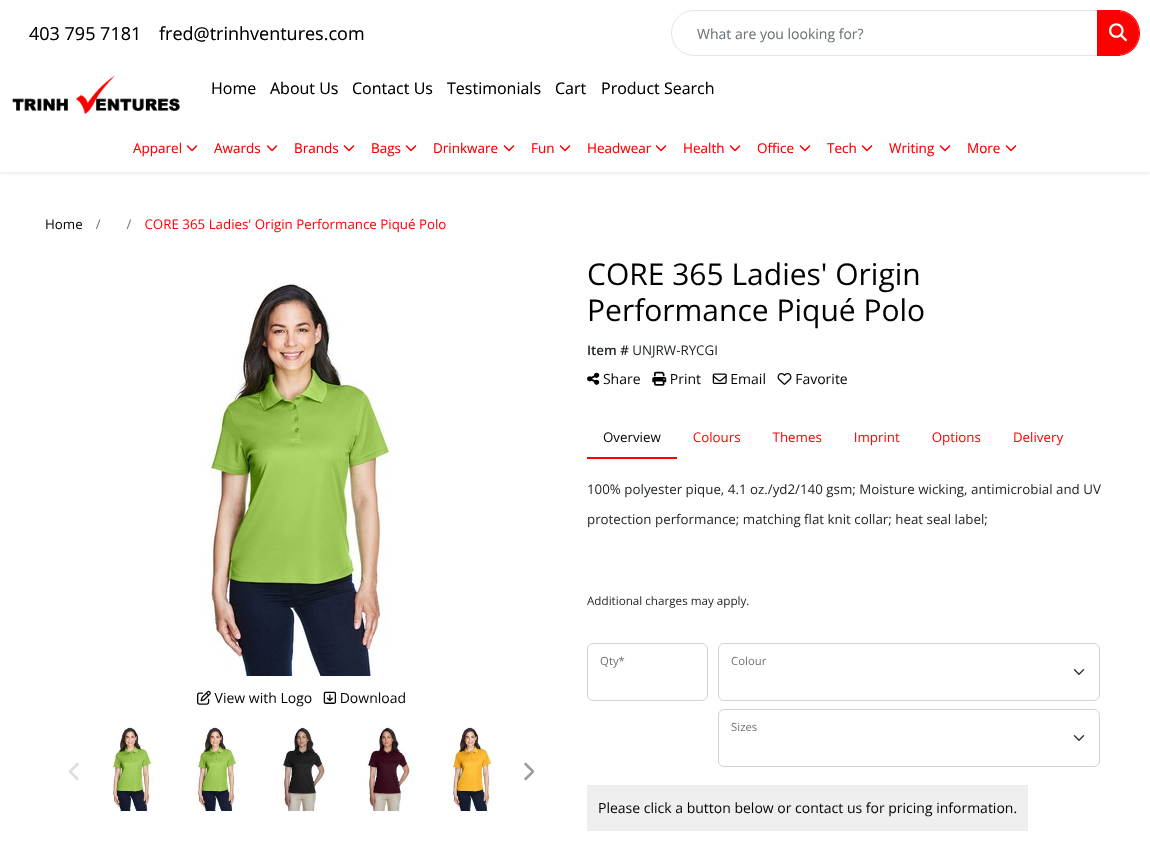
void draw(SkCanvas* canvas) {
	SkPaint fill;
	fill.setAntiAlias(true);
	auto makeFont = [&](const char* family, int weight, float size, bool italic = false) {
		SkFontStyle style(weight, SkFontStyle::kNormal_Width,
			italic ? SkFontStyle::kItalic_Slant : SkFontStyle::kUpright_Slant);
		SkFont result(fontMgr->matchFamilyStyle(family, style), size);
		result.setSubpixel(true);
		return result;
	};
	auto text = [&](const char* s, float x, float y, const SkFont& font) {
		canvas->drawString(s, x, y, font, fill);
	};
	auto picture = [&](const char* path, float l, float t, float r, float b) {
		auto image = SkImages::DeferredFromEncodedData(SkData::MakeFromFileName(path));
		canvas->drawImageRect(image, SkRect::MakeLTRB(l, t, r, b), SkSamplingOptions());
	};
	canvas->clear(0xFFFFFFFF);
	fill.setStyle(SkPaint::kStroke_Style);
	fill.setStrokeWidth(1);
	fill.setColor(0xFFE4E4E4);
	canvas->drawPath(SkPathBuilder().moveTo(694, 10.5f).lineTo(1097.5f, 10.5f).lineTo(1097.5f, 55.5f).lineTo(694, 55.5f).cubicTo(681.5f, 55.5f, 671.5f, 45.5f, 671.5f, 33).cubicTo(671.5f, 20.5f, 681.5f, 10.5f, 694, 10.5f).close().detach(), fill);
	fill.setStyle(SkPaint::kFill_Style);
	fill.setColor(0xFFFF0000);
	canvas->drawPath(SkPathBuilder().moveTo(1097, 11).lineTo(1117, 11).cubicTo(1129, 11, 1139, 21, 1139, 33).cubicTo(1139, 45, 1129, 55, 1117, 55).lineTo(1097, 55).close().detach(), fill);
	canvas->drawPath(SkPathBuilder(SkPathFillType::kEvenOdd).moveTo(1097, 10).lineTo(1117, 10).cubicTo(1130, 10, 1140, 20, 1140, 33).cubicTo(1140, 46, 1130, 56, 1117, 56).lineTo(1097, 56).close().moveTo(1097, 11).lineTo(1117, 11).cubicTo(1129, 11, 1139, 21, 1139, 33).cubicTo(1139, 45, 1129, 55, 1117, 55).lineTo(1097, 55).close().detach(), fill);
	picture("image0.png", 1109, 23, 1127, 42);
	picture("image1.png", 12, 76, 180, 114);
	canvas->save();
	canvas->clipRect(SkRect::MakeLTRB(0, 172, 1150, 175));
	fill.setColor(0x12000000);
	fill.setMaskFilter(SkMaskFilter::MakeBlur(kNormal_SkBlurStyle, 2));
	canvas->drawRect(SkRect::MakeLTRB(0, 126, 1150, 174), fill);
	fill.setMaskFilter(nullptr);
	canvas->restore();
	picture("image2.png", 186, 145, 198, 152);
	picture("image2.png", 266, 145, 278, 152);
	picture("image2.png", 343, 145, 355, 152);
	picture("image2.png", 405, 145, 417, 152);
	picture("image2.png", 503, 145, 515, 152);
	picture("image2.png", 559, 145, 571, 152);
	picture("image2.png", 655, 145, 667, 152);
	picture("image2.png", 729, 145, 741, 152);
	picture("image2.png", 799, 145, 811, 152);
	picture("image2.png", 861, 145, 873, 152);
	picture("image2.png", 939, 145, 951, 152);
	picture("image2.png", 1005, 145, 1017, 152);
	picture("image3.png", 46, 218, 1101, 831);
	auto font1 = makeFont("Open Sans", 400, 18);
	fill.setColor(0xFF000000);
	text("403 795 7181", 29, 40, font1);
	text("fred@trinhventures.com", 159, 40, font1);
	auto font2 = makeFont("Open Sans", 400, 14);
	fill.setColor(0xFF6C757D);
	text("What are you looking for?", 697, 39, font2);
	auto font3 = makeFont("Open Sans", 400, 16);
	fill.setColor(0xFF000000);
	text("Home", 211, 94, font3);
	text("About Us", 270, 94, font3);
	text("Contact Us", 352, 94, font3);
	text("Testimonials", 447, 94, font3);
	text("Cart", 555, 94, font3);
	text("Product Search", 601, 94, font3);
	auto font4 = makeFont("Open Sans", 400, 13.5f);
	fill.setColor(0xFFFF0000);
	text("Apparel", 133, 153, font4);
	text("Awards", 214, 153, font4);
	text("Brands", 294, 153, font4);
	text("Bags", 371, 153, font4);
	text("Drinkware", 433, 153, font4);
	text("Fun", 531, 153, font4);
	text("Headwear", 587, 153, font4);
	text("Health", 683, 153, font4);
	text("Office", 757, 153, font4);
	text("Tech", 827, 153, font4);
	text("Writing", 889, 153, font4);
	text("More", 967, 153, font4);
}
